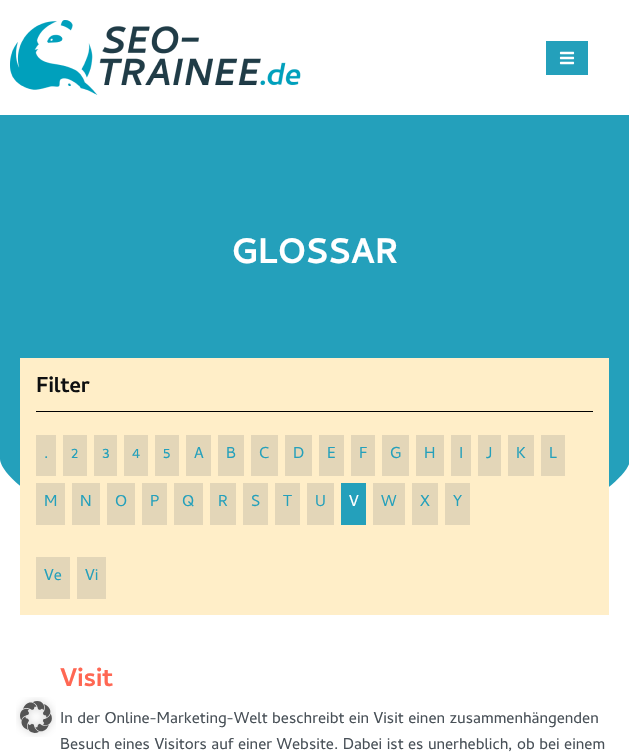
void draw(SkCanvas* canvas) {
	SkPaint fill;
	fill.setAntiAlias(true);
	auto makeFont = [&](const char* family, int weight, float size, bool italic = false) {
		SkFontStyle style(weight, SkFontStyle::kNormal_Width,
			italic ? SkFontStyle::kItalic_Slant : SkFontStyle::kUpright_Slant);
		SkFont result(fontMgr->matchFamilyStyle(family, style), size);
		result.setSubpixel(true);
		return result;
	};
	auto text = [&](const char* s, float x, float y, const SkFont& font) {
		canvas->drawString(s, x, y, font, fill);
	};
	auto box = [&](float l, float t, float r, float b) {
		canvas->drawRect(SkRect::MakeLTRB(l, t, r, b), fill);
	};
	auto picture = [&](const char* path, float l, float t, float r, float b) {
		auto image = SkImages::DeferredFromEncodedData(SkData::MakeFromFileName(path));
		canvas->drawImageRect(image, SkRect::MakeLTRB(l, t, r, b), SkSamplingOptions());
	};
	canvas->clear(0xFFFFFFFF);
	picture("image0.png", 10, 20, 301, 95);
	fill.setColor(0xFF24A0BB);
	box(546, 41, 588, 75);
	picture("image1.png", 559, 51, 575, 65);
	picture("image2.png", 16, 697, 56, 737);
	box(0, 115, 629, 487);
	fill.setColor(0xFFFFFFFF);
	canvas->drawPath(SkPathBuilder().moveTo(315, 556).cubicTo(80, 555, 0, 479, 0, 459).lineTo(0, 559).lineTo(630, 559).lineTo(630, 460).cubicTo(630, 478, 550, 557, 315, 556).close().detach(), fill);
	fill.setColor(0xFFFFEEC8);
	box(20, 358, 609, 615);
	fill.setColor(0xFF000000);
	box(36, 411, 593, 412);
	fill.setColor(0xFFE3D6B8);
	box(36, 435, 56, 476);
	box(63, 435, 87, 476);
	box(94, 435, 117, 476);
	box(124, 435, 148, 476);
	box(155, 435, 179, 476);
	box(186, 435, 211, 476);
	box(218, 435, 244, 476);
	box(251, 435, 278, 476);
	box(285, 435, 312, 476);
	box(319, 435, 344, 476);
	box(351, 435, 375, 476);
	box(382, 435, 409, 476);
	box(416, 435, 444, 476);
	box(451, 435, 471, 476);
	box(478, 435, 501, 476);
	box(508, 435, 534, 476);
	box(541, 435, 565, 476);
	box(36, 483, 65, 525);
	box(72, 483, 100, 525);
	box(107, 483, 135, 525);
	box(142, 483, 167, 525);
	box(174, 483, 203, 525);
	box(210, 483, 236, 525);
	box(243, 483, 268, 525);
	box(275, 483, 300, 525);
	box(307, 483, 334, 525);
	fill.setColor(0xFF24A0BB);
	box(341, 483, 366, 525);
	fill.setColor(0xFFE3D6B8);
	box(373, 483, 405, 525);
	box(412, 483, 438, 525);
	box(445, 483, 470, 525);
	box(36, 557, 70, 599);
	box(77, 557, 106, 599);
	auto font1 = makeFont("Cambay", 700, 36);
	fill.setColor(0xFFFFFFFF);
	text("GLOSSAR", 232, 263, font1);
	auto font2 = makeFont("Cambay", 700, 22);
	fill.setColor(0xFF0E0F10);
	text("Filter", 36, 392, font2);
	auto font3 = makeFont("Cambay", 400, 16);
	fill.setColor(0xFF24A0BB);
	text(".", 44, 458, font3);
	text("2", 71, 458, font3);
	text("3", 102, 458, font3);
	text("4", 132, 458, font3);
	text("5", 163, 458, font3);
	text("A", 194, 458, font3);
	text("B", 226, 458, font3);
	text("C", 259, 458, font3);
	text("D", 293, 458, font3);
	text("E", 327, 458, font3);
	text("F", 359, 458, font3);
	text("G", 390, 458, font3);
	text("H", 424, 458, font3);
	text("I", 459, 458, font3);
	text("J", 486, 458, font3);
	text("K", 516, 458, font3);
	text("L", 549, 458, font3);
	text("M", 44, 506, font3);
	text("N", 80, 506, font3);
	text("O", 115, 506, font3);
	text("P", 150, 506, font3);
	text("Q", 182, 506, font3);
	text("R", 218, 506, font3);
	text("S", 251, 506, font3);
	text("T", 283, 506, font3);
	text("U", 315, 506, font3);
	fill.setColor(0xFFFFFFFF);
	text("V", 349, 506, font3);
	fill.setColor(0xFF24A0BB);
	text("W", 381, 506, font3);
	text("X", 420, 506, font3);
	text("Y", 453, 506, font3);
	text("Ve", 44, 580, font3);
	text("Vi", 85, 580, font3);
	auto font4 = makeFont("Cambay", 700, 26);
	fill.setColor(0xFFFF6753);
	text("Visit", 60, 686, font4);
	fill.setColor(0xFF485057);
	text("In der Online-Marketing-Welt beschreibt ein Visit einen zusammenhängenden", 60, 723, font3);
	text("Besuch eines Visitors auf einer Website. Dabei ist es unerheblich, ob bei einem", 60, 749, font3);
}
